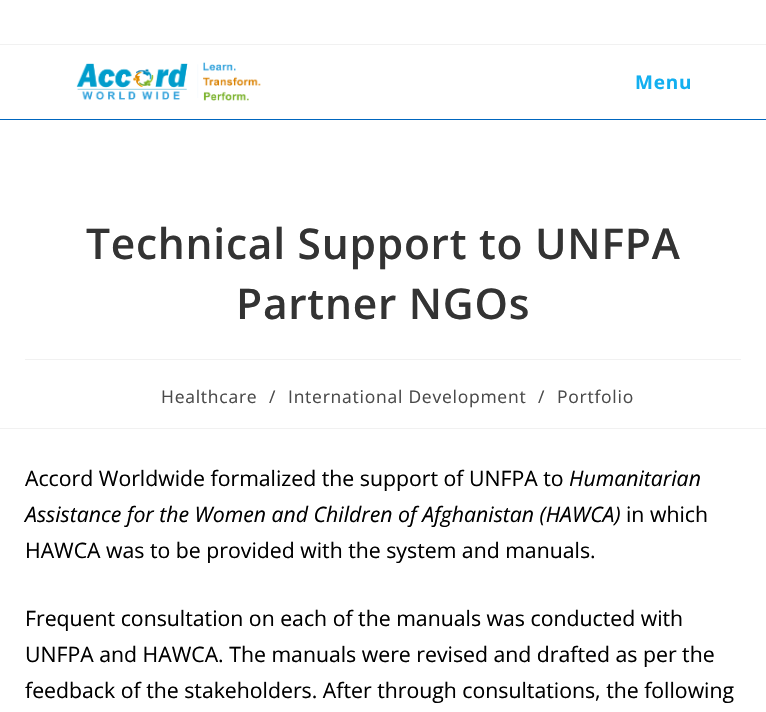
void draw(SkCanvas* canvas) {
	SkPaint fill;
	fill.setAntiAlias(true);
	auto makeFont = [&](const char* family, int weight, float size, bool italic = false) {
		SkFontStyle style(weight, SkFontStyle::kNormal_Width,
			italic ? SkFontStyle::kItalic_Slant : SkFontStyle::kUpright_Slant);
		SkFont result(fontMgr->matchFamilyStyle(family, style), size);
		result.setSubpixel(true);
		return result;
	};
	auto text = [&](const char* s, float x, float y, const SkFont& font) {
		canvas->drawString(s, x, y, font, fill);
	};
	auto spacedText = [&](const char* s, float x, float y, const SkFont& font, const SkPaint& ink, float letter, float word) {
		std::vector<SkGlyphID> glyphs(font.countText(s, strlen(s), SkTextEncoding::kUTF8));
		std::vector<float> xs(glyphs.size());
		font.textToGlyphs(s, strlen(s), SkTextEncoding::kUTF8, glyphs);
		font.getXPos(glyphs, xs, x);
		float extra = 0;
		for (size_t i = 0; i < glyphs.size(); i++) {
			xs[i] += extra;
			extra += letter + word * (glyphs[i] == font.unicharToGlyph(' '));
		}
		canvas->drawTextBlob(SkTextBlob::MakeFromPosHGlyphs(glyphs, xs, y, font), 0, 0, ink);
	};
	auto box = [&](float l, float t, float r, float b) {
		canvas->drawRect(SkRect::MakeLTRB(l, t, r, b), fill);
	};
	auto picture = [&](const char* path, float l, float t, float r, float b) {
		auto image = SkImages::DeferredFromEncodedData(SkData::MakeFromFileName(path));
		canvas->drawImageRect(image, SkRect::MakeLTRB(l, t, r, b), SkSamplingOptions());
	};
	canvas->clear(0xFFFFFFFF);
	fill.setColor(0xFFF1F1F1);
	box(0, 44, 766, 45);
	fill.setColor(0xFF0066BF);
	box(0, 119, 766, 120);
	picture("image0.png", 76, 62, 261, 101);
	fill.setColor(0xFFF1F1F1);
	box(25, 359, 741, 360);
	box(0, 428, 766, 429);
	auto font1 = makeFont("Open Sans", 700, 19);
	fill.setColor(0xFF13AFF0);
	spacedText("Menu", 635, 89, font1, fill, 0.75f, 0);
	auto font2 = makeFont("Open Sans", 600, 42.5f);
	fill.setColor(0xFF333333);
	spacedText("Technical Support to UNFPA", 86, 259, font2, fill, 0.75f, 0);
	spacedText("Partner NGOs", 236, 319, font2, fill, 0.75f, 0);
	auto font3 = makeFont("Open Sans", 400, 17.5f);
	fill.setColor(0xFF4A4A4A);
	spacedText("Healthcare", 161, 403, font3, fill, 0.75f, 0);
	spacedText("/", 269, 403, font3, fill, 0.75f, 0);
	spacedText("International Development", 288, 403, font3, fill, 0.75f, 0);
	spacedText("/", 538, 403, font3, fill, 0.75f, 0);
	spacedText("Portfolio", 557, 403, font3, fill, 0.75f, 0);
	auto font4 = makeFont("Open Sans", 400, 21.25f);
	fill.setColor(0xFF000000);
	text("Accord Worldwide formalized the support of UNFPA to", 25, 486, font4);
	auto font5 = makeFont("Open Sans", 400, 21.25f, true);
	text("Humanitarian", 569, 486, font5);
	text("Assistance for the Women and Children of Afghanistan (HAWCA)", 25, 522, font5);
	text("in which", 626, 522, font4);
	text("HAWCA was to be provided with the system and manuals.", 25, 558, font4);
	text("Frequent consultation on each of the manuals was conducted with", 25, 626, font4);
	text("UNFPA and HAWCA. The manuals were revised and drafted as per the", 25, 662, font4);
	text("feedback of the stakeholders. After through consultations, the following", 25, 698, font4);
}
